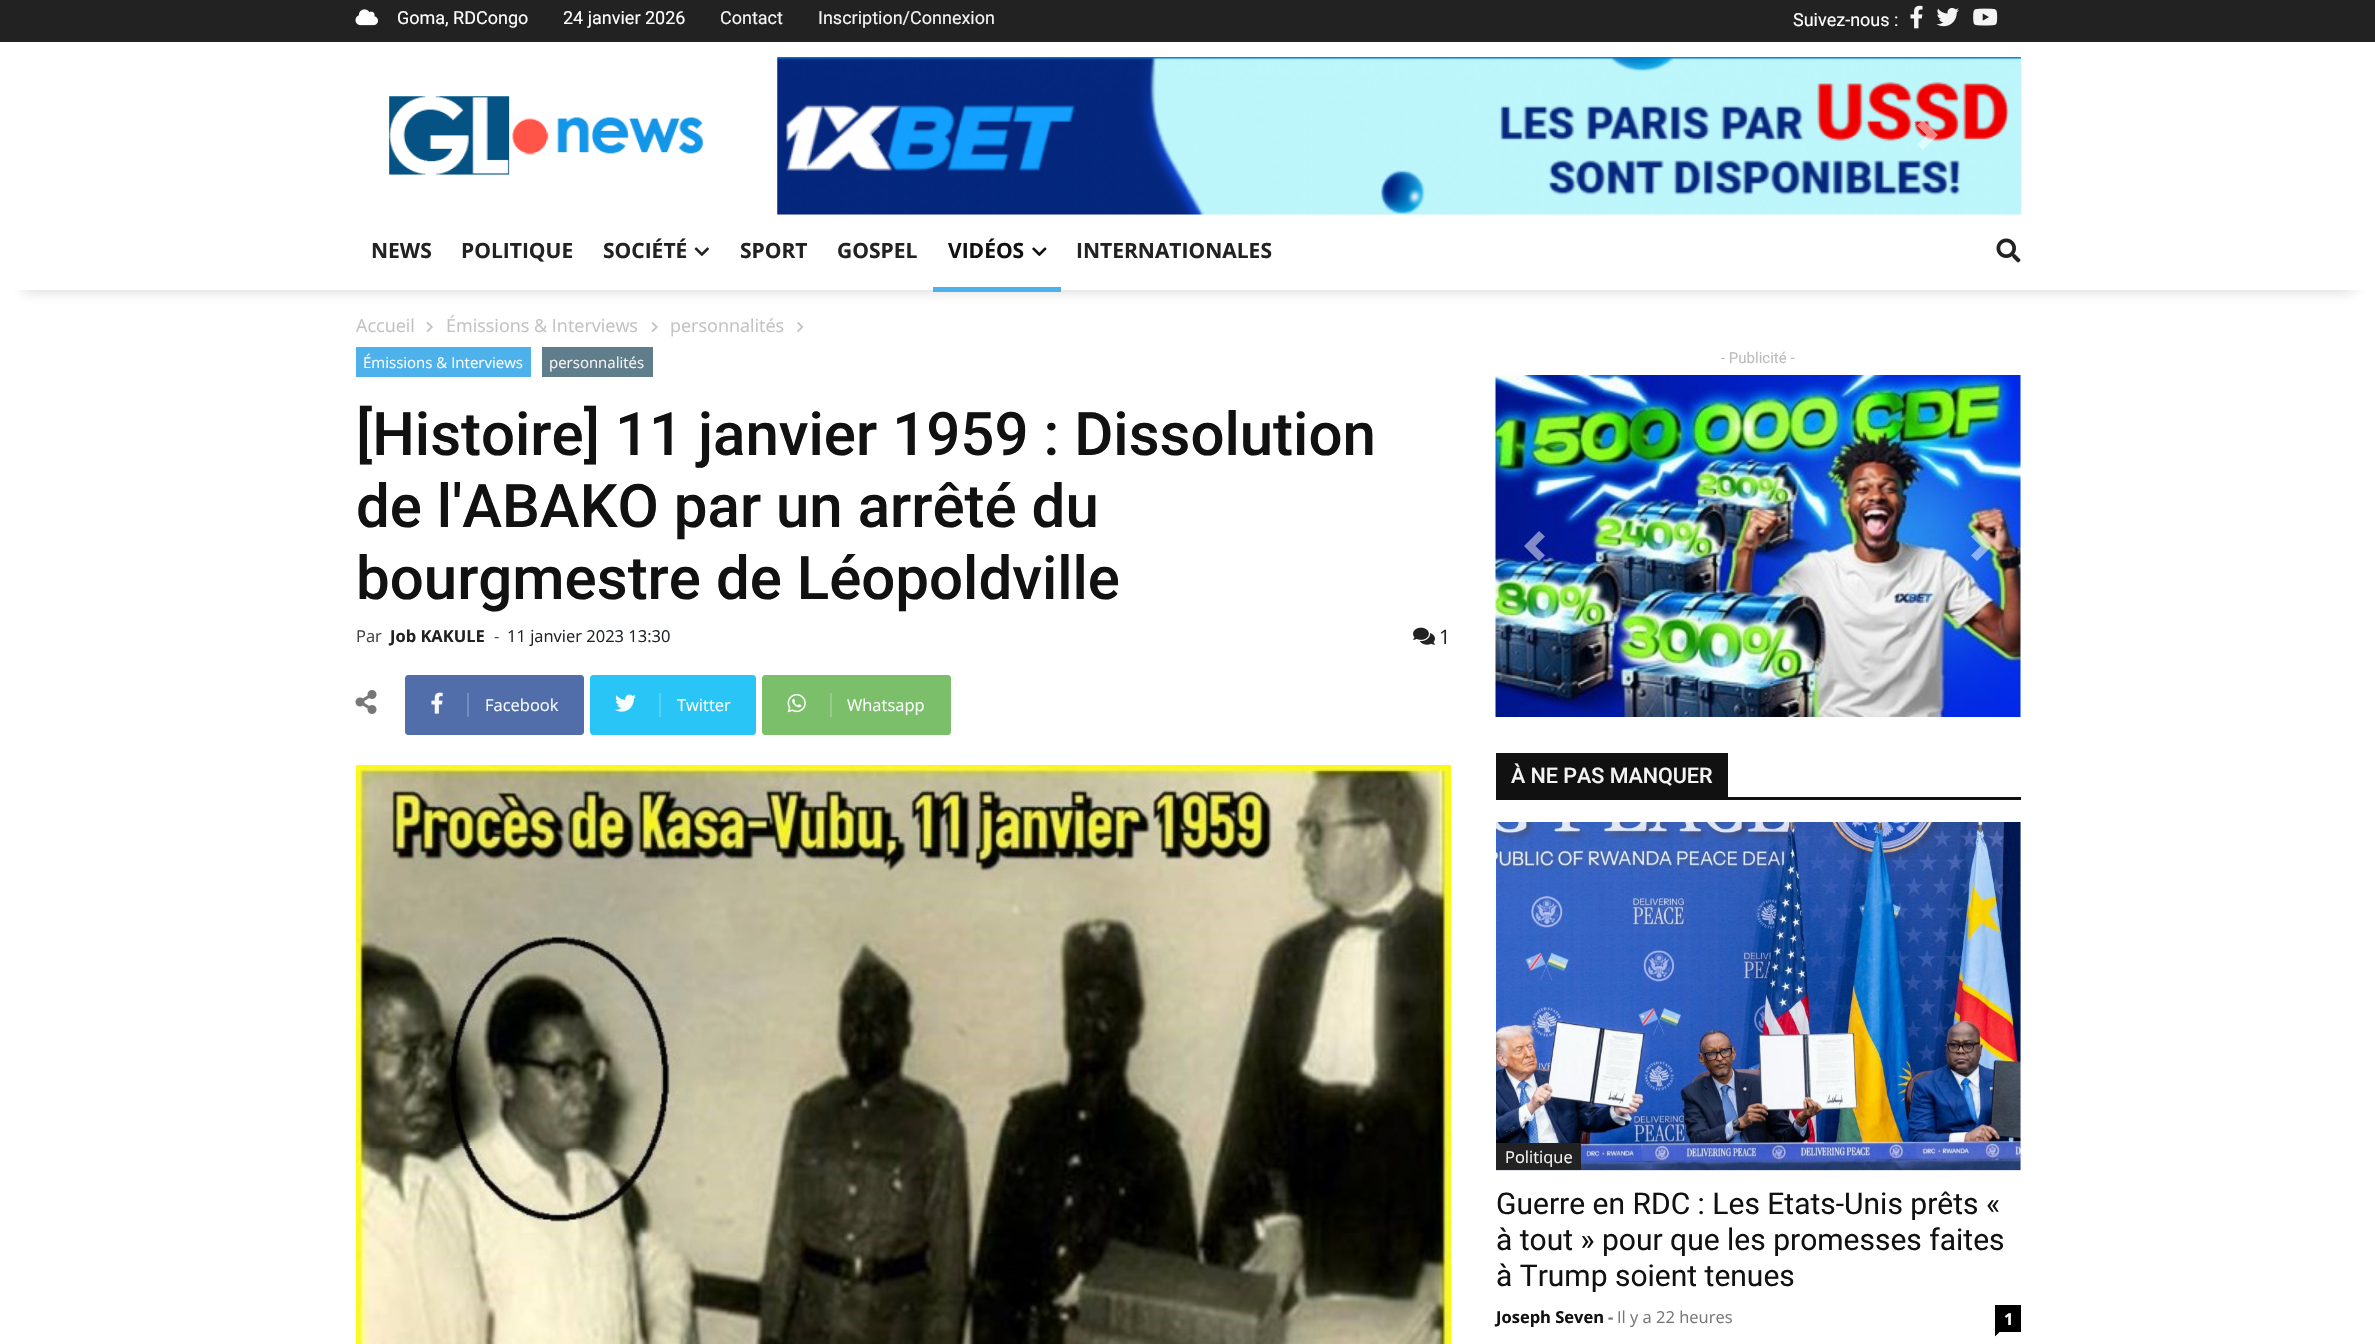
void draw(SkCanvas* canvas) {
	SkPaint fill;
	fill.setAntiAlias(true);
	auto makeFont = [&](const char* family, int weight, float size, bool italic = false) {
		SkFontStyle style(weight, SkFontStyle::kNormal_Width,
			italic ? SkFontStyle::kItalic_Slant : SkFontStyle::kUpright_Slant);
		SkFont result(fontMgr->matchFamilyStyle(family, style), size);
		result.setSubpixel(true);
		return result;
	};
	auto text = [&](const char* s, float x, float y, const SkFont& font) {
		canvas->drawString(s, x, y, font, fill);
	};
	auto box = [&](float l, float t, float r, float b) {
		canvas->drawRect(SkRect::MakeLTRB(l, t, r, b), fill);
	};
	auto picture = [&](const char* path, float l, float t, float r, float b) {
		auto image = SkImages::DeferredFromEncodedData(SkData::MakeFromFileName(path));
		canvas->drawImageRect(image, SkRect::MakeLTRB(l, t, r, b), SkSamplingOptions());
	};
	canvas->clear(0xFFFFFFFF);
	fill.setColor(0xFF222222);
	box(0, 0, 2375, 42);
	picture("image0.png", 355, 9, 378, 26);
	picture("image1.png", 1910, 5, 1923, 29);
	picture("image2.png", 1936, 7, 1959, 27);
	picture("image3.png", 1973, 8, 1998, 26);
	picture("image4.png", 389, 96, 703, 175);
	picture("image5.png", 777, 57, 2021, 215);
	fill.setColor(0x80FFFFFF);
	canvas->drawPath(SkPathBuilder().moveTo(874.5f, 120).lineTo(859.5f, 135).lineTo(874.5f, 150).lineTo(880.5f, 144.5f).lineTo(871, 135).lineTo(880.5f, 125.5f).close().detach(), fill);
	canvas->drawPath(SkPathBuilder().moveTo(1923, 120).lineTo(1917, 125.5f).lineTo(1926.5f, 135).lineTo(1917, 144.5f).lineTo(1923, 150).lineTo(1938, 135).close().detach(), fill);
	canvas->save();
	canvas->clipPath(SkPathBuilder(SkPathFillType::kEvenOdd).moveTo(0, 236).lineTo(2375, 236).lineTo(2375, 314).lineTo(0, 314).close().moveTo(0, 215).lineTo(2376, 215).lineTo(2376, 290).lineTo(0, 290).close().detach(), true);
	fill.setColor(0x33121212);
	fill.setMaskFilter(SkMaskFilter::MakeBlur(kNormal_SkBlurStyle, 7.5f));
	canvas->drawRect(SkRect::MakeLTRB(23, 260, 2354, 290), fill);
	fill.setMaskFilter(nullptr);
	canvas->restore();
	fill.setColor(0xF2FFFFFF);
	box(17, 289, 2360, 290);
	picture("image6.png", 694, 247, 709, 256);
	fill.setColor(0xFF4DB2EC);
	box(933, 287, 1061, 292);
	picture("image7.png", 1032, 247, 1047, 256);
	picture("image8.png", 1996, 238, 2021, 263);
	picture("image9.png", 426, 322, 433, 332);
	picture("image9.png", 651, 322, 658, 332);
	picture("image10.png", 797, 322, 804, 332);
	box(356, 347, 531, 377);
	fill.setColor(0xFF607D8B);
	box(542, 347, 653, 377);
	picture("image11.png", 1413, 627, 1435, 645);
	picture("image12.png", 355, 690, 377, 714);
	fill.setColor(0xFF516EAB);
	canvas->drawPath(SkPathBuilder().moveTo(408, 675).lineTo(470, 675).lineTo(470, 735).lineTo(408, 735).cubicTo(406.5f, 735, 405, 733.5f, 405, 732).lineTo(405, 678).cubicTo(405, 676.5f, 406.5f, 675, 408, 675).close().detach(), fill);
	picture("image13.png", 431, 692, 443, 714);
	canvas->drawPath(SkPathBuilder().moveTo(467, 675).lineTo(581, 675).cubicTo(582.5f, 675, 584, 676.5f, 584, 678).lineTo(584, 732).cubicTo(584, 733.5f, 582.5f, 735, 581, 735).lineTo(467, 735).close().detach(), fill);
	fill.setColor(0xFF748BBC);
	box(467, 693, 469, 717);
	fill.setColor(0xFF29C5F6);
	canvas->drawPath(SkPathBuilder().moveTo(593, 675).lineTo(662, 675).lineTo(662, 735).lineTo(593, 735).cubicTo(591.5f, 735, 590, 733.5f, 590, 732).lineTo(590, 678).cubicTo(590, 676.5f, 591.5f, 675, 593, 675).close().detach(), fill);
	picture("image14.png", 615, 694, 636, 712);
	canvas->drawPath(SkPathBuilder().moveTo(659, 675).lineTo(753, 675).cubicTo(754.5f, 675, 756, 676.5f, 756, 678).lineTo(756, 732).cubicTo(756, 733.5f, 754.5f, 735, 753, 735).lineTo(659, 735).close().detach(), fill);
	fill.setColor(0xFF54D1F8);
	box(659, 693, 661, 717);
	fill.setColor(0xFF7BBF6A);
	canvas->drawPath(SkPathBuilder().moveTo(765, 675).lineTo(833, 675).lineTo(833, 735).lineTo(765, 735).cubicTo(763.5f, 735, 762, 733.5f, 762, 732).lineTo(762, 678).cubicTo(762, 676.5f, 763.5f, 675, 765, 675).close().detach(), fill);
	picture("image15.png", 787, 693, 806, 713);
	canvas->drawPath(SkPathBuilder().moveTo(830, 675).lineTo(948, 675).cubicTo(949.5f, 675, 951, 676.5f, 951, 678).lineTo(951, 732).cubicTo(951, 733.5f, 949.5f, 735, 948, 735).lineTo(830, 735).close().detach(), fill);
	fill.setColor(0xFF95CC88);
	box(830, 693, 832, 717);
	picture("image16.png", 356, 765, 1451, 1344);
	picture("image17.png", 1495, 375, 2021, 717);
	fill.setColor(0x80FFFFFF);
	canvas->drawPath(SkPathBuilder().moveTo(1539, 531).lineTo(1524, 546).lineTo(1539, 561).lineTo(1545, 555.5f).lineTo(1535.5f, 546).lineTo(1545, 536.5f).close().detach(), fill);
	canvas->drawPath(SkPathBuilder().moveTo(1977, 531).lineTo(1971, 536.5f).lineTo(1980.5f, 546).lineTo(1971, 555.5f).lineTo(1977, 561).lineTo(1992, 546).close().detach(), fill);
	fill.setColor(0xFF111111);
	box(1496, 753, 1728, 797);
	box(1496, 797, 2021, 800);
	picture("image18.png", 1496, 822, 2021, 1171);
	fill.setColor(0xFF222222);
	box(1496, 1143, 1581, 1170);
	fill.setColor(0xFF000000);
	box(1995, 1305, 2021, 1332);
	canvas->drawPath(SkPathBuilder().moveTo(1995, 1332).lineTo(1999.5f, 1332).lineTo(1995, 1336.5f).close().detach(), fill);
	auto font1 = makeFont("Roboto", 400, 18);
	fill.setColor(0xFFFFFFFF);
	text("Goma, RDCongo", 397, 24, font1);
	text("24 janvier 2026", 563, 24, font1);
	fill.setColor(0xFFF4F4F4);
	text("Contact", 720, 24, font1);
	text("Inscription/Connexion", 818, 24, font1);
	fill.setColor(0xFFFFFFFF);
	text("Suivez-nous :", 1793, 26, font1);
	auto font2 = makeFont("Open Sans", 700, 21);
	fill.setColor(0xFF222222);
	text("NEWS", 371, 258, font2);
	text("POLITIQUE", 461, 258, font2);
	text("SOCIÉTÉ", 603, 258, font2);
	text("SPORT", 740, 258, font2);
	text("GOSPEL", 837, 258, font2);
	fill.setColor(0xFF111111);
	text("VIDÉOS", 948, 258, font2);
	fill.setColor(0xFF222222);
	text("INTERNATIONALES", 1076, 258, font2);
	auto font3 = makeFont("Open Sans", 400, 18);
	fill.setColor(0xFFC3C3C3);
	text("Accueil", 356, 332, font3);
	text("Émissions & Interviews", 446, 332, font3);
	text("personnalités", 670, 332, font3);
	auto font4 = makeFont("Open Sans", 400, 15);
	fill.setColor(0xFFF6FBFE);
	text("Émissions & Interviews", 363, 368, font4);
	fill.setColor(0xFFF4F4F4);
	text("personnalités", 549, 368, font4);
	auto font5 = makeFont("Roboto", 500, 60);
	fill.setColor(0xFF111111);
	text("[Histoire] 11 janvier 1959 : Dissolution", 356, 455, font5);
	text("de l'ABAKO par un arrêté du", 356, 527, font5);
	text("bourgmestre de Léopoldville", 356, 599, font5);
	auto font6 = makeFont("Open Sans", 400, 16.5f);
	fill.setColor(0xFF444444);
	text("Par", 356, 642, font6);
	auto font7 = makeFont("Open Sans", 700, 16.5f);
	fill.setColor(0xFF222222);
	text("Job KAKULE", 390, 642, font7);
	fill.setColor(0xFF444444);
	text("-", 494, 642, font6);
	fill.setColor(0xFF212529);
	text("11 janvier 2023 13:30", 507, 642, font6);
	auto font8 = makeFont("Open Sans", 400, 20);
	fill.setColor(0xFF222222);
	text("1", 1439, 644, font8);
	fill.setColor(0xFFF6FBFE);
	text("Facebook", 485, 711, font6);
	text("Twitter", 677, 711, font6);
	fill.setColor(0xFFF8FCF8);
	text("Whatsapp", 847, 711, font6);
	auto font9 = makeFont("Roboto", 400, 15);
	fill.setColor(0xFFBBBBBB);
	text("- Publicité -", 1721, 363, font9);
	auto font10 = makeFont("Roboto", 500, 21.5f);
	fill.setColor(0xFFF4F4F4);
	text("À NE PAS MANQUER", 1511, 783, font10);
	text("Politique", 1505, 1163, font6);
	auto font11 = makeFont("Roboto", 400, 30);
	fill.setColor(0xFF111111);
	text("Guerre en RDC : Les Etats-Unis prêts «", 1496, 1214, font11);
	text("à tout » pour que les promesses faites", 1496, 1250, font11);
	text("à Trump soient tenues", 1496, 1286, font11);
	text("Joseph Seven", 1496, 1323, font7);
	fill.setColor(0xFF777777);
	text("-", 1608, 1323, font7);
	text("Il y a 22 heures", 1617, 1323, font6);
	fill.setColor(0xFFFFFFFF);
	text("1", 2004, 1325, font7);
}
